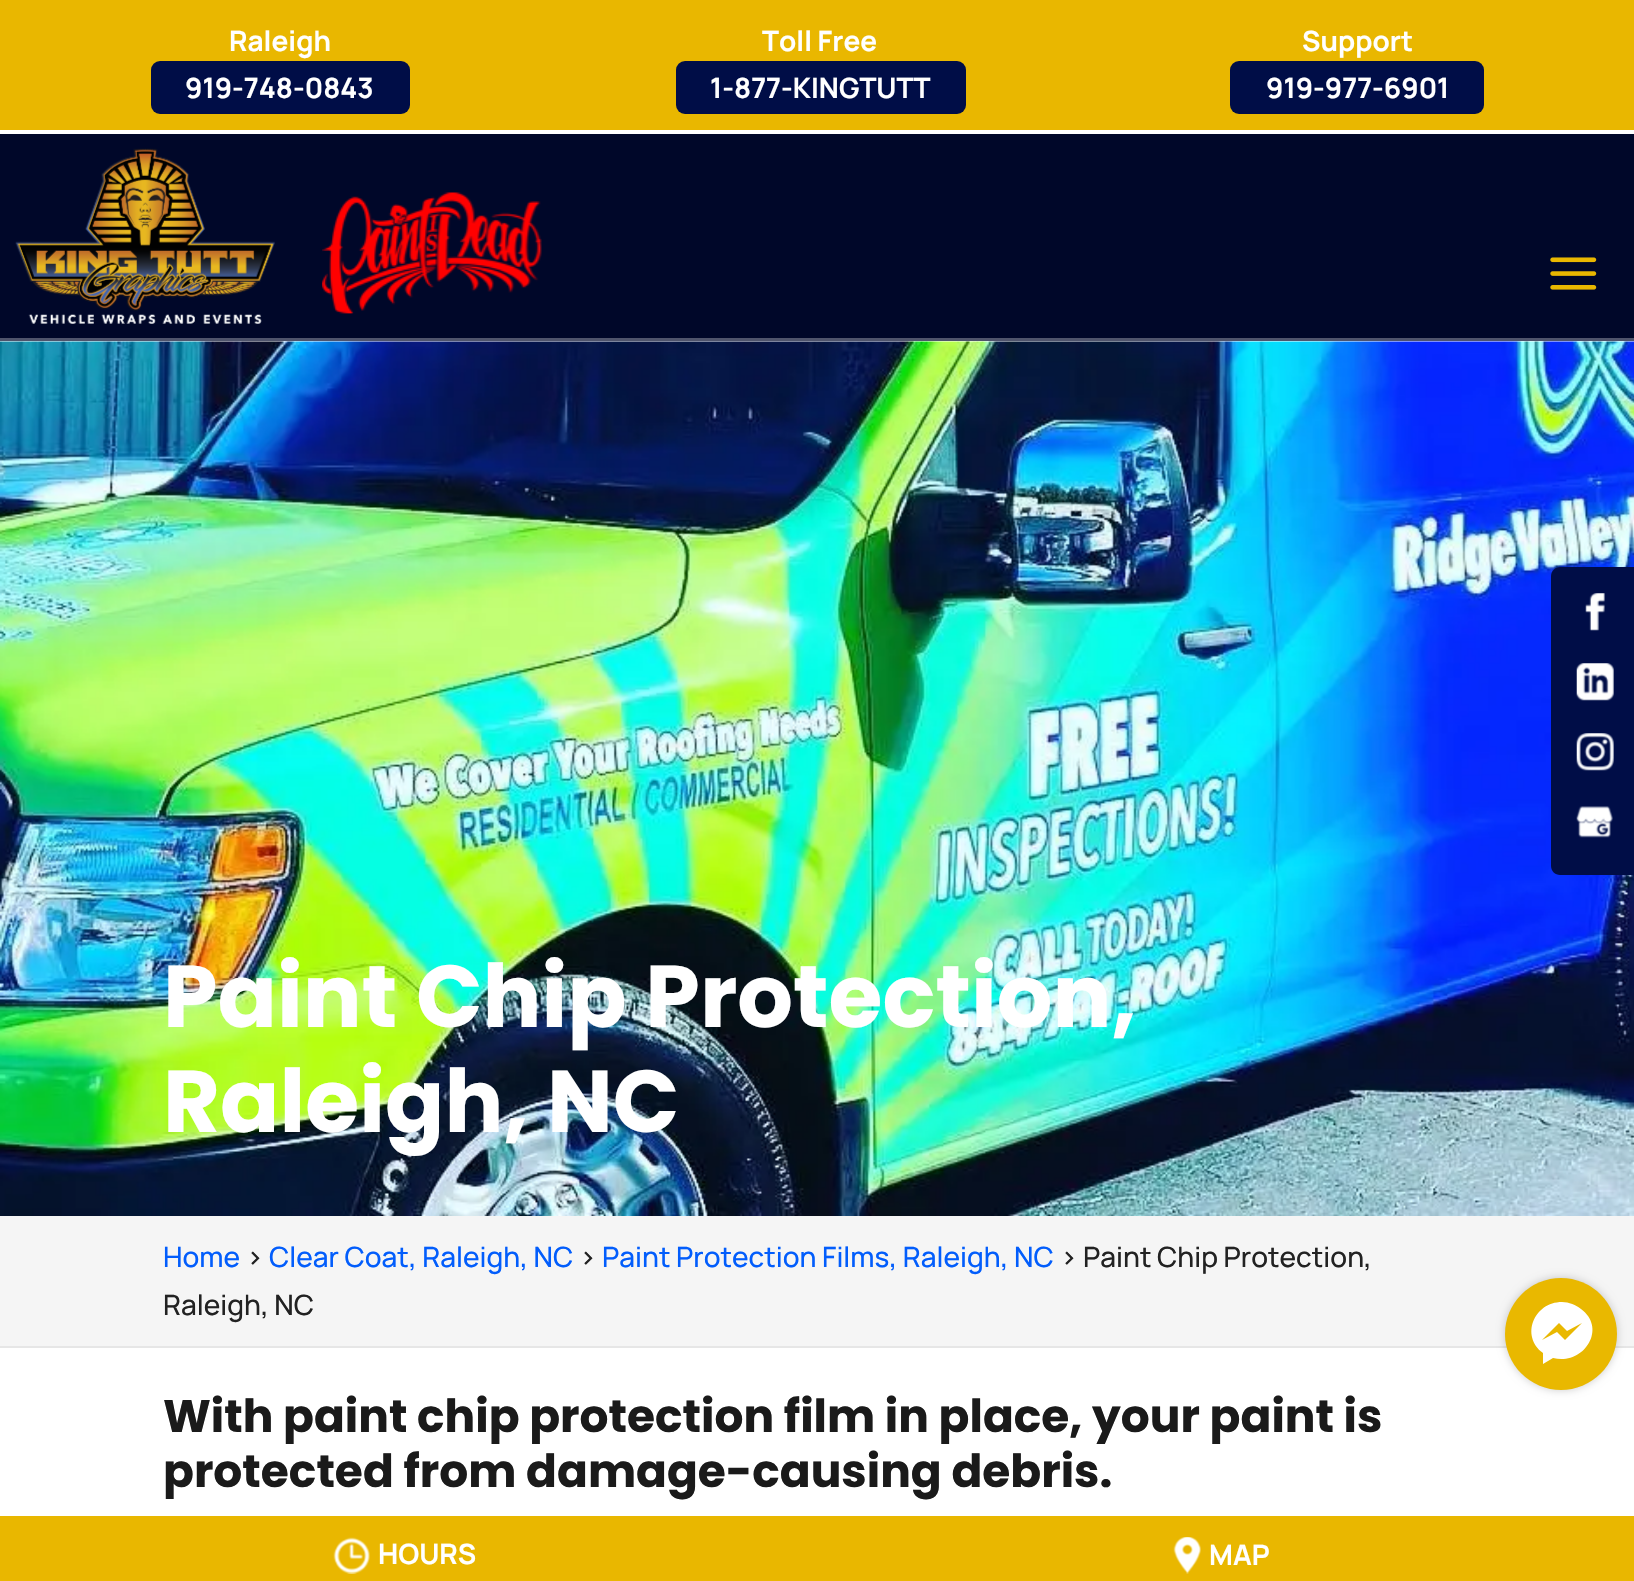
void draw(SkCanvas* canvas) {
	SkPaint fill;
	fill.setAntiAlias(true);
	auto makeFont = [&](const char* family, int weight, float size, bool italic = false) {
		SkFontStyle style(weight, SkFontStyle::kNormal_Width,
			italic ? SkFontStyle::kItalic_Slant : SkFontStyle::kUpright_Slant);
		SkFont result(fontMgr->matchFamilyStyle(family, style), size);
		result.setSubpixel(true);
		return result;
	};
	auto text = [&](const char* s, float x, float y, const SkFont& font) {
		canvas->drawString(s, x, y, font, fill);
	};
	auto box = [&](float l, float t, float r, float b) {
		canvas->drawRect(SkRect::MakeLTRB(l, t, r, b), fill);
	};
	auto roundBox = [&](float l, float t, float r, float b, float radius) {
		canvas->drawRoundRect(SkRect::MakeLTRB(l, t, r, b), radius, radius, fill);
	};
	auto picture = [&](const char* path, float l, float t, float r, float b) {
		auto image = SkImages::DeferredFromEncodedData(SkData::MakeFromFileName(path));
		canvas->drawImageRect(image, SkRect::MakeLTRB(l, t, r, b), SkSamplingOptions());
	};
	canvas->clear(0xFFFFFFFF);
	fill.setColor(0xFFE9B700);
	box(0, 0, 1634, 130);
	fill.setColor(0xFF000D47);
	roundBox(151, 61, 410, 114, 9);
	roundBox(676, 61, 966, 114, 9);
	roundBox(1230, 61, 1484, 114, 9);
	fill.setColor(0xFFE9B700);
	box(0, 1516, 1634, 1581);
	picture("image0.png", 333, 1537, 370, 1574);
	picture("image1.png", 1173, 1537, 1201, 1574);
	picture("image2.png", 0, 341, 1634, 1216);
	fill.setColor(0xFFE6E6E6);
	canvas->drawPath(SkPathBuilder().moveTo(0, 1346).lineTo(0, 1348).lineTo(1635, 1348).lineTo(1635, 1218).lineTo(1634, 1218).lineTo(1634, 1346).close().detach(), fill);
	fill.setColor(0xFFF5F5F5);
	box(0, 1216, 1634, 1346);
	fill.setColor(0xFF000729);
	box(0, 134, 1634, 341);
	fill.setColor(0x4FFFFFFF);
	box(0, 338, 1634, 342);
	picture("image3.png", 15, 148, 275, 324);
	picture("image4.png", 322, 192, 542, 314);
	picture("image5.png", 1550, 257, 1597, 290);
	fill.setColor(0xFF000D47);
	canvas->drawPath(SkPathBuilder().moveTo(1560, 567).lineTo(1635, 567).lineTo(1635, 875).lineTo(1560, 875).cubicTo(1555, 875, 1551, 871, 1551, 866).lineTo(1551, 576).cubicTo(1551, 571, 1555, 567, 1560, 567).close().detach(), fill);
	picture("image6.png", 1585, 593, 1605, 631);
	picture("image7.png", 1576, 663, 1614, 701);
	picture("image8.png", 1576, 733, 1614, 771);
	picture("image9.png", 1576, 806, 1613, 838);
	fill.setColor(0x33000000);
	fill.setMaskFilter(SkMaskFilter::MakeBlur(kNormal_SkBlurStyle, 4.5f));
	canvas->drawRoundRect(SkRect::MakeLTRB(1505, 1278, 1617, 1390), 56, 56, fill);
	fill.setMaskFilter(nullptr);
	fill.setColor(0xFFE9B800);
	canvas->drawCircle(1561, 1334, 56, fill);
	fill.setColor(0xFFFFFFFF);
	canvas->drawPath(SkPathBuilder().moveTo(1562, 1302).cubicTo(1534, 1302, 1520, 1336, 1543, 1353).lineTo(1543, 1364).lineTo(1553, 1358).cubicTo(1583, 1366, 1608, 1329, 1581, 1309).cubicTo(1576, 1305, 1569, 1302, 1562, 1302).close().moveTo(1565, 1340).lineTo(1557, 1332).lineTo(1542, 1340).lineTo(1559, 1323).lineTo(1567, 1331).lineTo(1582, 1323).close().detach(), fill);
	auto font1 = makeFont("Manrope", 700, 28);
	text("Raleigh", 229, 51, font1);
	text("919-748-0843", 185, 98, font1);
	text("Toll Free", 762, 51, font1);
	text("1-877-KINGTUTT", 710, 98, font1);
	text("Support", 1302, 51, font1);
	text("919-977-6901", 1266, 98, font1);
	text("HOURS", 378, 1564, font1);
	text("MAP", 1209, 1565, font1);
	auto font2 = makeFont("Poppins", 700, 87.5f);
	text("Paint Chip Protection,", 163, 1027, font2);
	text("Raleigh, NC", 163, 1132, font2);
	auto font3 = makeFont("Manrope", 500, 28);
	fill.setColor(0xFF025DFC);
	text("Home", 163, 1267, font3);
	fill.setColor(0xFF222222);
	text(">", 246, 1267, font3);
	fill.setColor(0xFF025DFC);
	text("Clear Coat, Raleigh, NC", 269, 1267, font3);
	fill.setColor(0xFF222222);
	text(">", 579, 1267, font3);
	fill.setColor(0xFF025DFC);
	text("Paint Protection Films, Raleigh, NC", 602, 1267, font3);
	fill.setColor(0xFF222222);
	text("> Paint Chip Protection,", 1060, 1267, font3);
	text("Raleigh, NC", 163, 1315, font3);
	auto font4 = makeFont("Poppins", 700, 45.5f);
	fill.setColor(0xFF1A1A1A);
	text("With paint chip protection film in place, your paint is", 163, 1432, font4);
	text("protected from damage-causing debris.", 163, 1487, font4);
}
